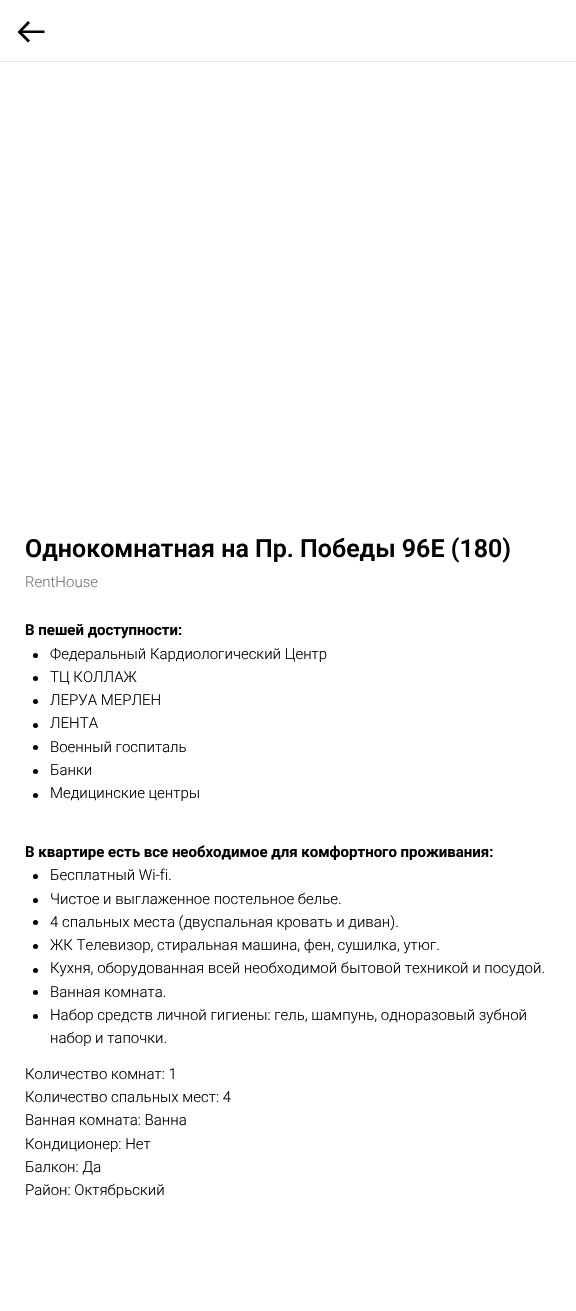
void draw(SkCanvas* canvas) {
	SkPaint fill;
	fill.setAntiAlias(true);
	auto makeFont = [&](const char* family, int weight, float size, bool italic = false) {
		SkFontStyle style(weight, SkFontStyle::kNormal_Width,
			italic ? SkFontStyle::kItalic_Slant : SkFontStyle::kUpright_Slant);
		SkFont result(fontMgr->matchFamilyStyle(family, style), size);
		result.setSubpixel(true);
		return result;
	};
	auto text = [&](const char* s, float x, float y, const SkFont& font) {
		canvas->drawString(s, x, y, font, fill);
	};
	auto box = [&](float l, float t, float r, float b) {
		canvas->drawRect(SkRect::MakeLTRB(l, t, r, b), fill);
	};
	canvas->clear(0xFFFFFFFF);
	fill.setColor(0xFFE6E6E6);
	box(0, 61, 576, 62);
	fill.setColor(0xFF000000);
	canvas->drawPath(SkPathBuilder().moveTo(28, 21).lineTo(30, 23).lineTo(22.5f, 30.5f).lineTo(44.5f, 30.5f).lineTo(44.5f, 33).lineTo(22.5f, 33).lineTo(30, 40.5f).lineTo(28, 42.5f).lineTo(17.5f, 32).close().detach(), fill);
	canvas->drawCircle(35.5f, 655.5f, 2.5f, fill);
	canvas->drawCircle(35.5f, 678.5f, 2.5f, fill);
	canvas->drawCircle(35.5f, 701.5f, 2.5f, fill);
	canvas->drawCircle(35.5f, 725.5f, 2.5f, fill);
	canvas->drawCircle(35.5f, 747.5f, 2.5f, fill);
	canvas->drawCircle(35.5f, 771.5f, 2.5f, fill);
	canvas->drawCircle(35.5f, 795.5f, 2.5f, fill);
	canvas->drawCircle(35.5f, 876.5f, 2.5f, fill);
	canvas->drawCircle(35.5f, 900.5f, 2.5f, fill);
	canvas->drawCircle(35.5f, 922.5f, 2.5f, fill);
	canvas->drawCircle(35.5f, 946.5f, 2.5f, fill);
	canvas->drawCircle(35.5f, 970.5f, 2.5f, fill);
	canvas->drawCircle(35.5f, 992.5f, 2.5f, fill);
	canvas->drawCircle(35.5f, 1016.5f, 2.5f, fill);
	auto font1 = makeFont("Roboto", 600, 25);
	text("Однокомнатная на Пр. Победы 96Е (180)", 25, 557, font1);
	auto font2 = makeFont("Roboto", 300, 15);
	fill.setColor(0xFF777777);
	text("RentHouse", 25, 587, font2);
	auto font3 = makeFont("Roboto", 700, 15);
	fill.setColor(0xFF000000);
	text("В пешей доступности:", 25, 635, font3);
	text("Федеральный Кардиологический Центр", 50, 659, font2);
	text("ТЦ КОЛЛАЖ", 50, 682, font2);
	text("ЛЕРУА МЕРЛЕН", 50, 705, font2);
	text("ЛЕНТА", 50, 728, font2);
	text("Военный госпиталь", 50, 752, font2);
	text("Банки", 50, 775, font2);
	text("Медицинские центры", 50, 798, font2);
	text("В квартире есть все необходимое для комфортного проживания:", 25, 857, font3);
	text("Бесплатный Wi-fi.", 50, 880, font2);
	text("Чистое и выглаженное постельное белье.", 50, 904, font2);
	text("4 спальных места (двуспальная кровать и диван).", 50, 927, font2);
	text("ЖК Телевизор, стиральная машина, фен, сушилка, утюг.", 50, 950, font2);
	text("Кухня, оборудованная всей необходимой бытовой техникой и посудой.", 50, 973, font2);
	text("Ванная комната.", 50, 997, font2);
	text("Набор средств личной гигиены: гель, шампунь, одноразовый зубной", 50, 1020, font2);
	text("набор и тапочки.", 50, 1043, font2);
	text("Количество комнат: 1", 25, 1079, font2);
	text("Количество спальных мест: 4", 25, 1102, font2);
	text("Ванная комната: Ванна", 25, 1125, font2);
	text("Кондиционер: Нет", 25, 1149, font2);
	text("Балкон: Да", 25, 1172, font2);
	text("Район: Октябрьский", 25, 1195, font2);
}
